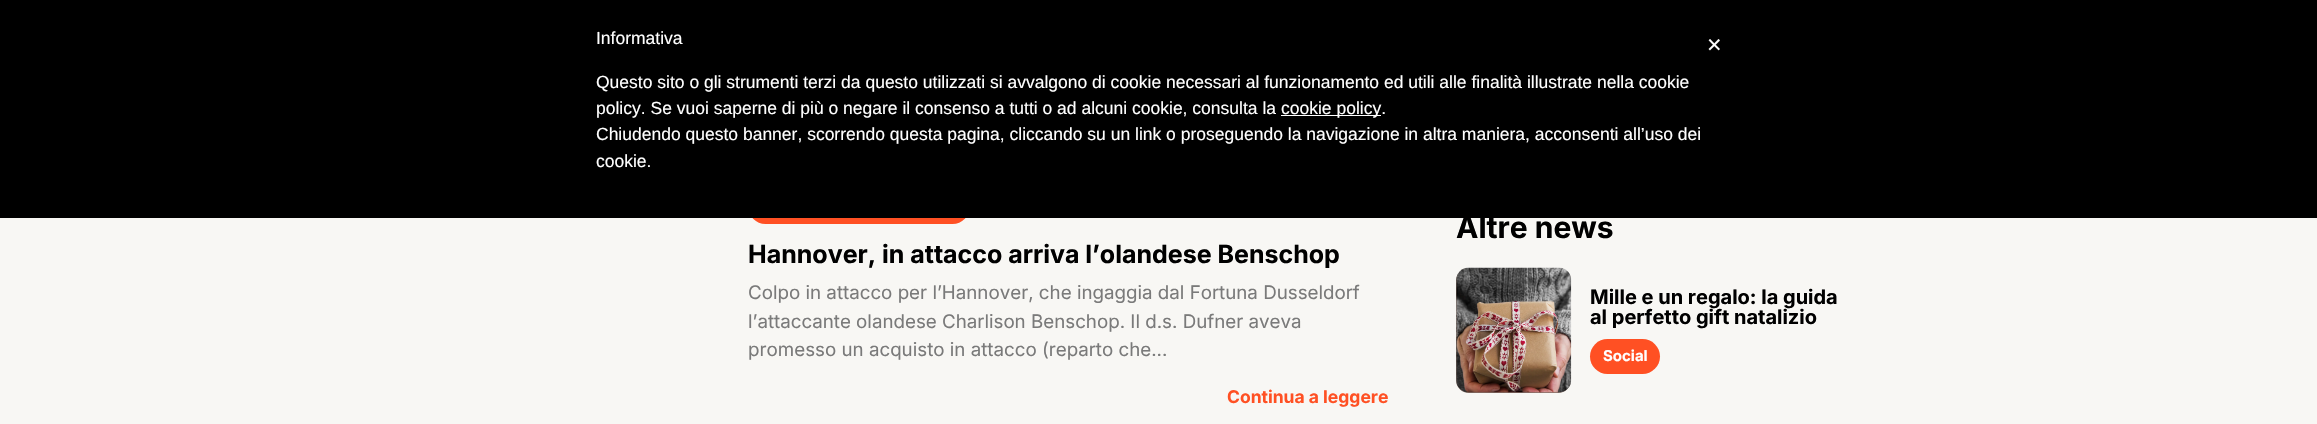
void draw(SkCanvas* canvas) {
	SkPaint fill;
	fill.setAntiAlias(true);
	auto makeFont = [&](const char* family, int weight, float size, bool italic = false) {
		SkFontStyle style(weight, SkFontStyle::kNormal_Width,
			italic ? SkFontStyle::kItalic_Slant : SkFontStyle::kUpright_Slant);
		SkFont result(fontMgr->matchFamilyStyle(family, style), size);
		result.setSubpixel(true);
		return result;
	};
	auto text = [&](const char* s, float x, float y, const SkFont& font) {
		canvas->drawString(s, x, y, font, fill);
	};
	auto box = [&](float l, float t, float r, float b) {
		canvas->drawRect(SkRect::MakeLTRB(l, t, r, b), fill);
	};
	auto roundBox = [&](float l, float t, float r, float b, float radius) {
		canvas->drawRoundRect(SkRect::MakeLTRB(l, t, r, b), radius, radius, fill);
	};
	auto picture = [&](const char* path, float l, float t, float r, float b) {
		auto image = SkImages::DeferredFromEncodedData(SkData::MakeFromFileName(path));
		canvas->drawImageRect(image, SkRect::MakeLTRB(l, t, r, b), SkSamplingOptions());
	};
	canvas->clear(0xFFF8F7F4);
	fill.setColor(0xFFFF5023);
	roundBox(748, 189, 970, 224, 17.5f);
	fill.setColor(0xFF000000);
	box(0, 0, 2317, 218);
	fill.setColor(0xFFFFFFFF);
	box(1281, 115, 1381, 116);
	fill.setColor(0xFF816D65);
	roundBox(1456, 268, 1571, 393, 13);
	picture("image0.png", 1456, 267, 1572, 393);
	fill.setColor(0xFFFF5023);
	roundBox(1590, 339, 1660, 374, 17.5f);
	auto font1 = makeFont("Liberation Sans", 400, 17.5f);
	fill.setColor(0xFFFFFFFF);
	text("Informativa", 596, 44, font1);
	text("Questo sito o gli strumenti terzi da questo utilizzati si avvalgono di cookie necessari al funzionamento ed utili alle finalità illustrate nella cookie", 596, 88, font1);
	text("policy. Se vuoi saperne di più o negare il consenso a tutti o ad alcuni cookie, consulta la", 596, 114, font1);
	text("cookie policy.", 1281, 114, font1);
	text("Chiudendo questo banner, scorrendo questa pagina, cliccando su un link o proseguendo la navigazione in altra maniera, acconsenti all’uso dei", 596, 140, font1);
	text("cookie.", 596, 167, font1);
	auto font2 = makeFont("Liberation Sans", 400, 25);
	text("×", 1707, 53, font2);
	auto font3 = makeFont("Inter", 700, 25);
	fill.setColor(0xFF000000);
	text("Hannover, in attacco arriva l’olandese Benschop", 748, 263, font3);
	auto font4 = makeFont("Inter", 400, 18.75f);
	fill.setColor(0xFF7A7A7A);
	text("Colpo in attacco per l’Hannover, che ingaggia dal Fortuna Dusseldorf", 748, 299, font4);
	text("l’attaccante olandese Charlison Benschop. Il d.s. Dufner aveva", 748, 328, font4);
	text("promesso un acquisto in attacco (reparto che...", 748, 356, font4);
	auto font5 = makeFont("Inter", 700, 17.5f);
	fill.setColor(0xFFFF5023);
	text("Continua a leggere", 1227, 403, font5);
	auto font6 = makeFont("Inter", 700, 30);
	fill.setColor(0xFF000000);
	text("Altre news", 1456, 238, font6);
	auto font7 = makeFont("Inter", 700, 20);
	text("Mille e un regalo: la guida", 1590, 304, font7);
	text("al perfetto gift natalizio", 1590, 324, font7);
	auto font8 = makeFont("Inter", 700, 15);
	fill.setColor(0xFFFFFFFF);
	text("Social", 1603, 361, font8);
}
